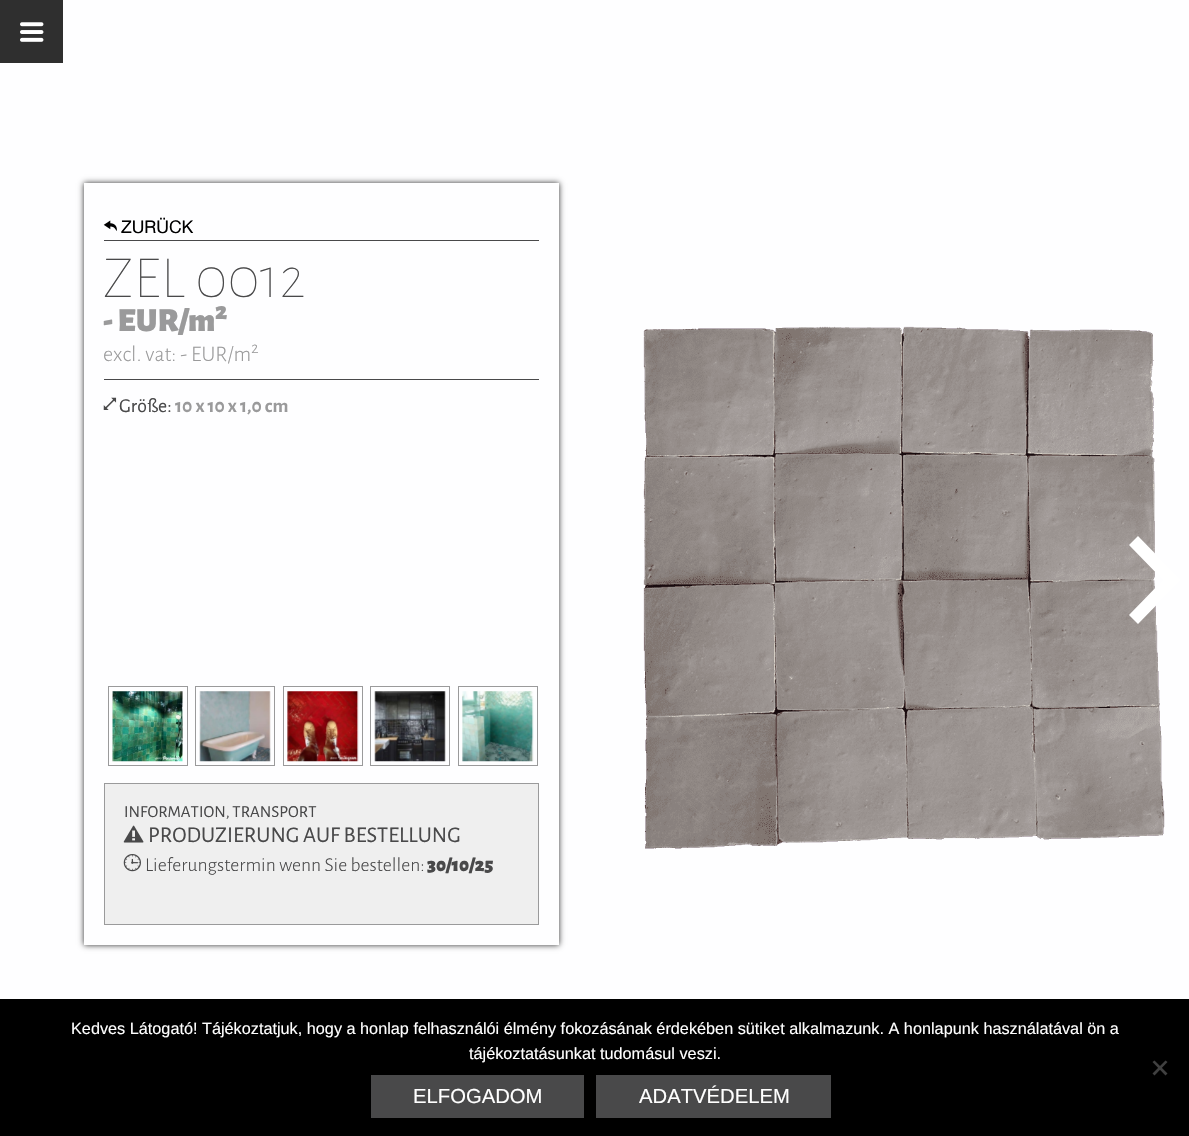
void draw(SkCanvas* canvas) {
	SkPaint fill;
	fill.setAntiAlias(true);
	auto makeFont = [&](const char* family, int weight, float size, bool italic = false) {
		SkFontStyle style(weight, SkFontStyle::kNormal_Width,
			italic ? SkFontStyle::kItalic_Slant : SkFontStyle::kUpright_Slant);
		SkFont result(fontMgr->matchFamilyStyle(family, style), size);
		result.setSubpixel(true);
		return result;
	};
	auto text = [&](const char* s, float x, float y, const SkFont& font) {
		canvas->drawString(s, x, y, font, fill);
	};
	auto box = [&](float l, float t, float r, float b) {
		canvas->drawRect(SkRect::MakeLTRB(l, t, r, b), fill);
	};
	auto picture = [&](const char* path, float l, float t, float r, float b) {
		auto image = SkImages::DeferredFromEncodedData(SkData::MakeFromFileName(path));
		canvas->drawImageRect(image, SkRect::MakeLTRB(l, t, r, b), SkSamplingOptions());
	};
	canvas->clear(0xFFFEFEFF);
	fill.setColor(0xFF2F2F2F);
	box(0, 0, 63, 63);
	picture("image0.png", 20, 22, 44, 42);
	canvas->save();
	canvas->clipPath(SkPathBuilder(SkPathFillType::kEvenOdd).moveTo(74, 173).lineTo(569, 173).lineTo(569, 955).lineTo(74, 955).close().moveTo(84, 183).lineTo(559, 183).lineTo(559, 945).lineTo(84, 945).close().detach(), true);
	fill.setMaskFilter(SkMaskFilter::MakeBlur(kNormal_SkBlurStyle, 3));
	canvas->drawRect(SkRect::MakeLTRB(84, 183, 559, 945), fill);
	fill.setMaskFilter(nullptr);
	canvas->restore();
	fill.setColor(0xEBFFFFFF);
	box(558, 183, 559, 945);
	picture("image1.png", 103, 220, 117, 231);
	fill.setColor(0xFF49494A);
	box(104, 240, 539, 241);
	box(104, 379, 539, 380);
	picture("image2.png", 103, 397, 117, 410);
	fill.setStyle(SkPaint::kStroke_Style);
	fill.setStrokeWidth(1);
	fill.setColor(0xFF9A9A9B);
	canvas->drawRect(SkRect::MakeLTRB(108.5f, 686.5f, 187.5f, 765.5f), fill);
	picture("image3.png", 112, 691, 183, 762);
	canvas->drawRect(SkRect::MakeLTRB(195.5f, 686.5f, 274.5f, 765.5f), fill);
	picture("image4.png", 199, 691, 271, 762);
	canvas->drawRect(SkRect::MakeLTRB(283.5f, 686.5f, 362.5f, 765.5f), fill);
	picture("image5.png", 287, 691, 359, 762);
	canvas->drawRect(SkRect::MakeLTRB(370.5f, 686.5f, 449.5f, 765.5f), fill);
	picture("image6.png", 374, 691, 446, 762);
	canvas->drawRect(SkRect::MakeLTRB(458.5f, 686.5f, 537.5f, 765.5f), fill);
	picture("image7.png", 462, 691, 534, 762);
	fill.setStyle(SkPaint::kFill_Style);
	fill.setColor(0xFFEFEFEF);
	canvas->drawRect(SkRect::MakeLTRB(104.5f, 783.5f, 538.5f, 924.5f), fill);
	fill.setStyle(SkPaint::kStroke_Style);
	fill.setColor(0xFF9A9A9B);
	canvas->drawRect(SkRect::MakeLTRB(104.5f, 783.5f, 538.5f, 924.5f), fill);
	picture("image8.png", 123, 825, 144, 843);
	picture("image9.png", 123, 854, 141, 872);
	picture("image10.png", 643, 326, 1165, 849);
	fill.setStyle(SkPaint::kFill_Style);
	fill.setColor(0xFFFFFFFF);
	canvas->drawPath(SkPathBuilder().moveTo(1129, 545).lineTo(1138, 536).lineTo(1181, 580).lineTo(1138, 624).lineTo(1129, 615).lineTo(1163, 580).close().detach(), fill);
	fill.setColor(0xFF000000);
	box(0, 999, 1189, 1136);
	fill.setColor(0xFF404040);
	canvas->drawPath(SkPathBuilder().moveTo(1165.5f, 1060.5f).lineTo(1167.5f, 1062).lineTo(1154.5f, 1075.5f).lineTo(1152.5f, 1073.5f).close().detach(), fill);
	canvas->drawPath(SkPathBuilder().moveTo(1152.5f, 1062).lineTo(1154.5f, 1060.5f).lineTo(1167.5f, 1073.5f).lineTo(1165.5f, 1075.5f).close().detach(), fill);
	fill.setColor(0xFF49494A);
	box(371, 1075, 584, 1118);
	box(596, 1075, 831, 1118);
	auto font1 = makeFont("Helvetica Neue", 400, 17.5f);
	fill.setColor(0xFF000000);
	text("ZURÜCK", 121, 233, font1);
	auto font2 = makeFont("Alegreya Sans", 100, 60);
	fill.setColor(0xFF49494A);
	text("ZEL 0012", 103, 297, font2);
	auto font3 = makeFont("Alegreya Sans", 900, 33.5f);
	fill.setColor(0xFF9A9A9B);
	text("- EUR/m", 103, 331, font3);
	auto font4 = makeFont("Alegreya Sans", 900, 25);
	text("2", 215, 319, font4);
	auto font5 = makeFont("Alegreya Sans", 300, 22.25f);
	text("excl. vat: - EUR/m", 103, 361, font5);
	auto font6 = makeFont("Alegreya Sans", 300, 17);
	text("2", 251, 353, font6);
	auto font7 = makeFont("Alegreya Sans", 400, 19.75f);
	fill.setColor(0xFF49494A);
	text("Größe:", 119, 412, font7);
	auto font8 = makeFont("Alegreya Sans", 700, 19.75f);
	fill.setColor(0xFF9A9A9B);
	text("10 x 10 x 1,0 cm", 175, 412, font8);
	auto font9 = makeFont("Alegreya Sans", 400, 16.9f);
	fill.setColor(0xFF49494A);
	text("INFORMATION, TRANSPORT", 124, 817, font9);
	auto font10 = makeFont("Alegreya Sans", 400, 22.5f);
	text("PRODUZIERUNG AUF BESTELLUNG", 148, 842, font10);
	auto font11 = makeFont("Alegreya Sans", 300, 19.75f);
	text("Lieferungstermin wenn Sie bestellen:", 145, 871, font11);
	auto font12 = makeFont("Alegreya Sans", 900, 19.75f);
	text("30/10/25", 427, 871, font12);
	auto font13 = makeFont("Liberation Sans", 400, 16.25f);
	fill.setColor(0xFFFFFFFF);
	text("Kedves Látogató! Tájékoztatjuk, hogy a honlap felhasználói élmény fokozásának érdekében sütiket alkalmazunk. A honlapunk használatával ön a", 71, 1034, font13);
	text("tájékoztatásunkat tudomásul veszi.", 469, 1059, font13);
	auto font14 = makeFont("Liberation Sans", 400, 20.25f);
	text("ELFOGADOM", 413, 1103, font14);
	text("ADATVÉDELEM", 639, 1103, font14);
}
